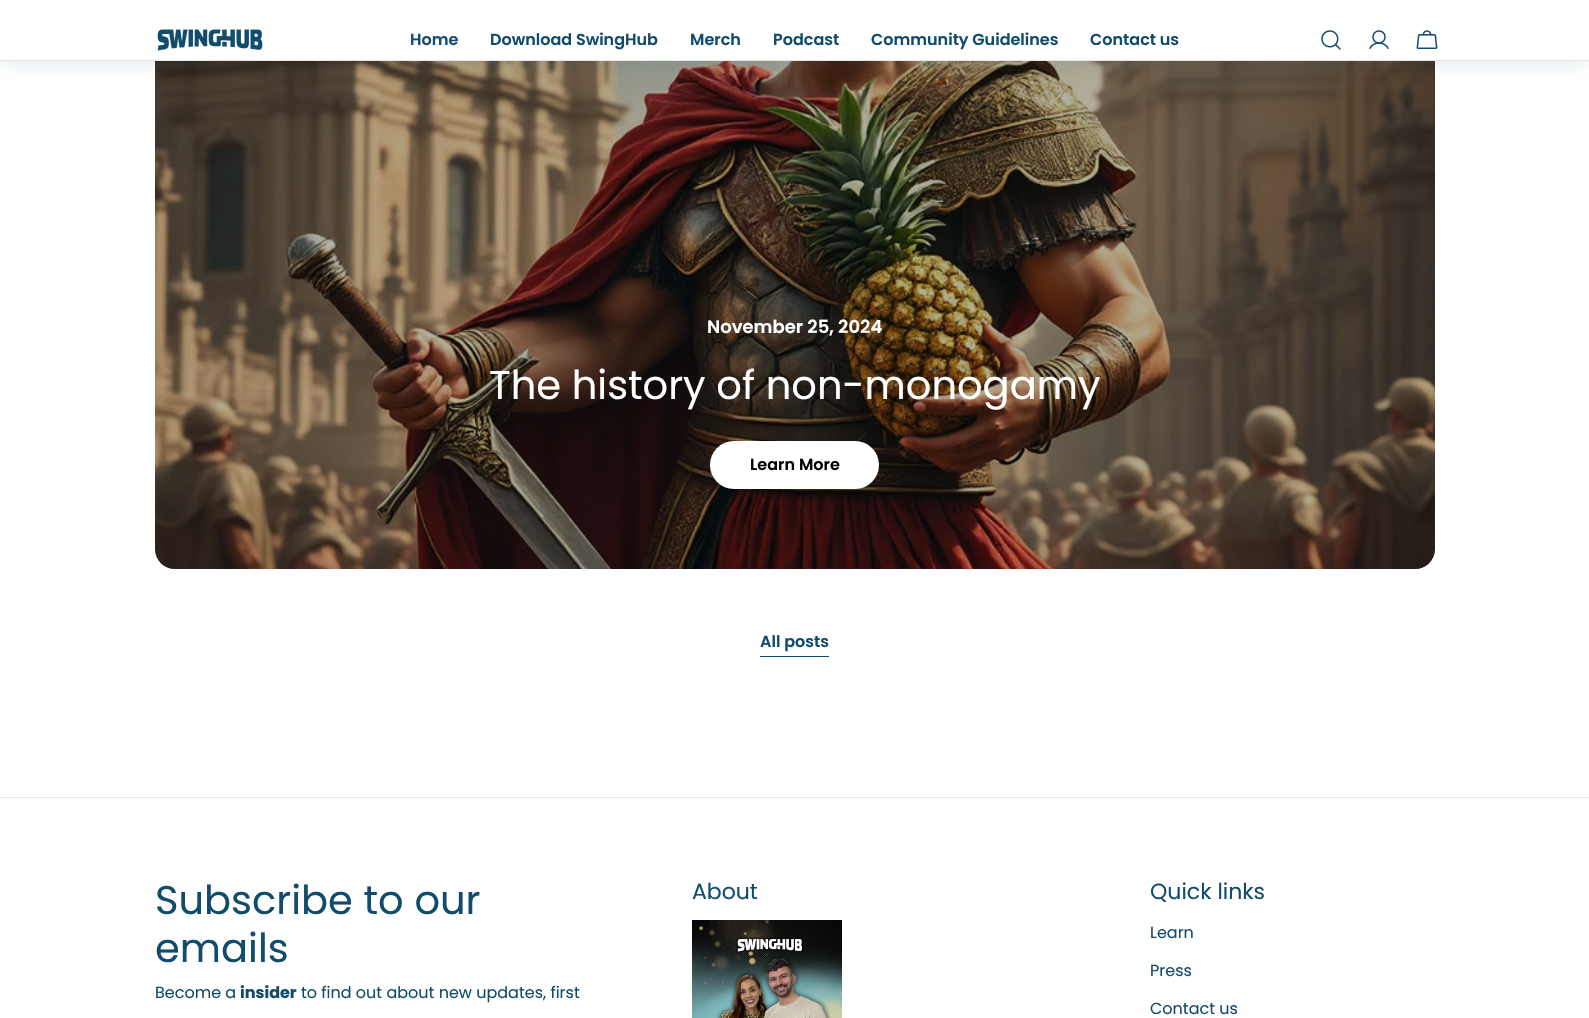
void draw(SkCanvas* canvas) {
	SkPaint fill;
	fill.setAntiAlias(true);
	auto makeFont = [&](const char* family, int weight, float size, bool italic = false) {
		SkFontStyle style(weight, SkFontStyle::kNormal_Width,
			italic ? SkFontStyle::kItalic_Slant : SkFontStyle::kUpright_Slant);
		SkFont result(fontMgr->matchFamilyStyle(family, style), size);
		result.setSubpixel(true);
		return result;
	};
	auto text = [&](const char* s, float x, float y, const SkFont& font) {
		canvas->drawString(s, x, y, font, fill);
	};
	auto box = [&](float l, float t, float r, float b) {
		canvas->drawRect(SkRect::MakeLTRB(l, t, r, b), fill);
	};
	auto roundBox = [&](float l, float t, float r, float b, float radius) {
		canvas->drawRoundRect(SkRect::MakeLTRB(l, t, r, b), radius, radius, fill);
	};
	auto picture = [&](const char* path, float l, float t, float r, float b) {
		auto image = SkImages::DeferredFromEncodedData(SkData::MakeFromFileName(path));
		canvas->drawImageRect(image, SkRect::MakeLTRB(l, t, r, b), SkSamplingOptions());
	};
	canvas->clear(0xFFFFFFFF);
	picture("image4.png", 155, 61, 1435, 569);
	fill.setColor(0x4D000000);
	roundBox(155, 19, 1435, 569, 20);
	fill.setColor(0x1A114C6C);
	fill.setMaskFilter(SkMaskFilter::MakeBlur(kNormal_SkBlurStyle, 9));
	canvas->drawRect(SkRect::MakeLTRB(0, 4, 1589, 65), fill);
	fill.setMaskFilter(nullptr);
	fill.setColor(0xFFE6E6E6);
	box(0, 60, 1589, 61);
	fill.setColor(0xFFFFFFFF);
	box(0, 0, 1589, 60);
	picture("image0.png", 157, 29, 263, 51);
	picture("image1.png", 1321, 30, 1341, 50);
	picture("image2.png", 1369, 30, 1389, 49);
	picture("image3.png", 1416, 30, 1438, 49);
	roundBox(710, 441, 879, 489, 24);
	fill.setColor(0xFF114C6C);
	box(760, 656, 829, 657);
	fill.setColor(0xFFE6E6E6);
	box(0, 797, 1589, 798);
	picture("image5.png", 692, 920, 842, 1018);
	auto font1 = makeFont("Poppins", 600, 16);
	fill.setColor(0xFF114C6C);
	text("Home", 410, 45, font1);
	text("Download SwingHub", 490, 45, font1);
	text("Merch", 690, 45, font1);
	text("Podcast", 773, 45, font1);
	text("Community Guidelines", 871, 45, font1);
	text("Contact us", 1090, 45, font1);
	auto font2 = makeFont("Poppins", 600, 18);
	fill.setColor(0xFFFFFFFF);
	text("November 25, 2024", 707, 333, font2);
	auto font3 = makeFont("Poppins", 400, 40);
	text("The history of non-monogamy", 489, 399, font3);
	fill.setColor(0xFF000000);
	text("Learn More", 750, 470, font1);
	fill.setColor(0xFF114C6C);
	text("All posts", 760, 647, font1);
	text("Subscribe to our", 155, 914, font3);
	text("emails", 155, 962, font3);
	auto font4 = makeFont("Poppins", 400, 16);
	text("Become a", 155, 998, font4);
	auto font5 = makeFont("Poppins", 700, 16);
	text("insider", 240, 998, font5);
	text("to find out about new updates, first", 301, 998, font4);
	auto font6 = makeFont("Poppins", 400, 22);
	text("About", 692, 899, font6);
	text("Quick links", 1150, 899, font6);
	text("Learn", 1150, 938, font4);
	text("Press", 1150, 976, font4);
	text("Contact us", 1150, 1014, font4);
}
